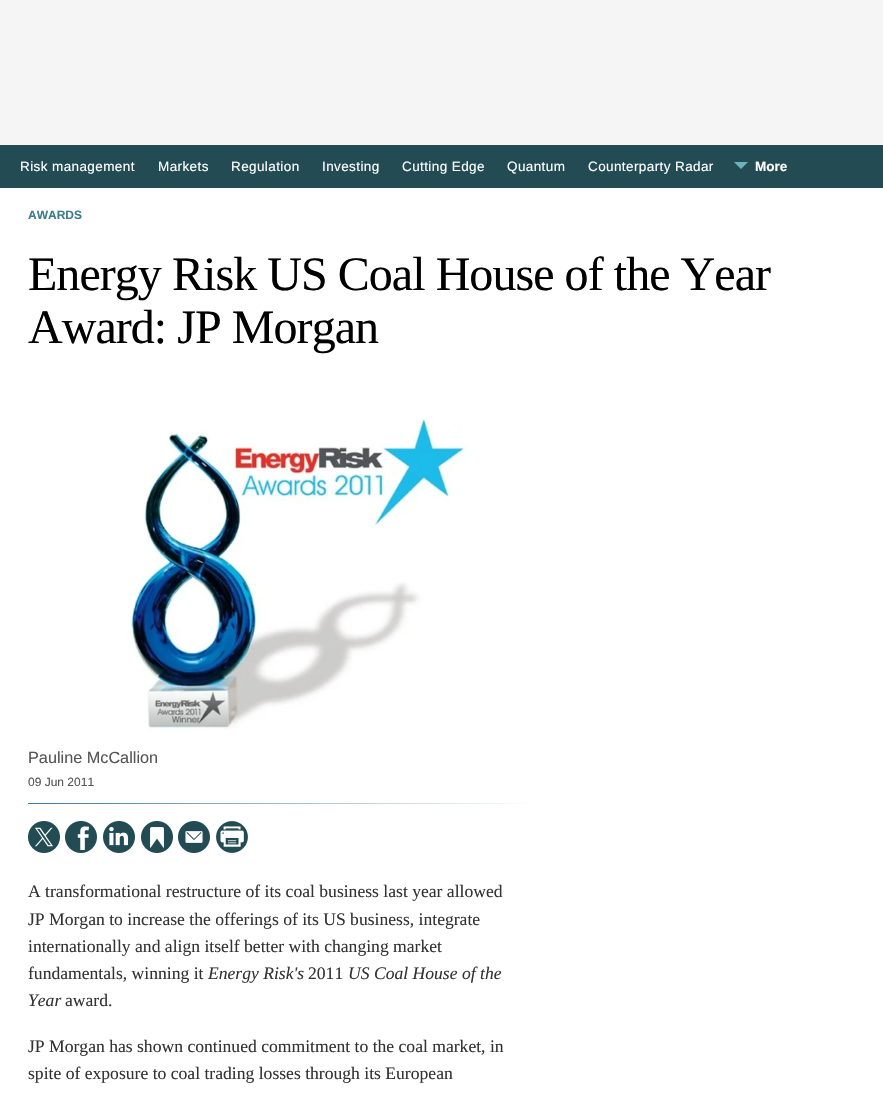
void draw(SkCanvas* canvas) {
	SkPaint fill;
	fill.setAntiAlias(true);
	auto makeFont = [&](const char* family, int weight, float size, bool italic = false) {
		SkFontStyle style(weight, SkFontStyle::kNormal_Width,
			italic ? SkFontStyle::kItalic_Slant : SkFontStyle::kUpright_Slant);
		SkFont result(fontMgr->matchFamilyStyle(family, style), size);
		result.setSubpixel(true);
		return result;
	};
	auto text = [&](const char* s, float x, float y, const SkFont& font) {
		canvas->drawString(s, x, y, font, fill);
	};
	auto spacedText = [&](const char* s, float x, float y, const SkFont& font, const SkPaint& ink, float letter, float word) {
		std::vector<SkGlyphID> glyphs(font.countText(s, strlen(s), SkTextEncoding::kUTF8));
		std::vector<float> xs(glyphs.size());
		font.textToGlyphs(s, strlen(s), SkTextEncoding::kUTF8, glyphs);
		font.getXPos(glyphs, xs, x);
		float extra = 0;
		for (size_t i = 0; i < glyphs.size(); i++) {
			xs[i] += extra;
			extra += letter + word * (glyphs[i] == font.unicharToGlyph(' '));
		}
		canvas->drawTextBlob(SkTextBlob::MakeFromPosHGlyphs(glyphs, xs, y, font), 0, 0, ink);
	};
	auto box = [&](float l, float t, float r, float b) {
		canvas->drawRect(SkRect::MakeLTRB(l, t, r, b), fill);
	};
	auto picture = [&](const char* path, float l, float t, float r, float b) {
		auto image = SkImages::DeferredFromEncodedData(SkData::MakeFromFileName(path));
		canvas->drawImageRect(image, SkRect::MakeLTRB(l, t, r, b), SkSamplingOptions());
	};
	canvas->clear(0xFFFFFFFF);
	fill.setColor(0xFFF4F5F4);
	box(0, 0, 883, 145);
	fill.setColor(0xFF234B53);
	box(0, 145, 883, 188);
	canvas->save();
	canvas->clipRect(SkRect::MakeLTRB(734, 162, 748, 170));
	fill.setColor(0xFF6CB1BC);
	canvas->drawPath(SkPathBuilder().moveTo(748, 204).lineTo(734, 204).lineTo(741, 197).close().moveTo(734, 162).lineTo(748, 162).lineTo(741, 169).close().detach(), fill);
	canvas->restore();
	picture("image0.png", 130, 418, 467, 730);
	{
		const SkColor colors[] = {0xFF3B7C8E, 0xFFFFFFFF};
		const float stops[] = {0, 1};
		const SkPoint ends[] = {{28, 804}, {535, 804}};
		fill.setShader(SkGradientShader::MakeLinear(ends, colors, stops, 2, SkTileMode::kClamp));
		fill.setAlpha(255);
	}
	box(28, 803, 535, 804);
	picture("image1.png", 28, 821, 60, 853);
	picture("image2.png", 65, 821, 97, 853);
	picture("image3.png", 103, 821, 135, 853);
	picture("image4.png", 141, 821, 173, 853);
	picture("image5.png", 178, 821, 210, 853);
	picture("image6.png", 216, 821, 248, 853);
	auto font1 = makeFont("Arimo", 400, 13.5f);
	fill.setShader(nullptr);
	fill.setColor(0xFFFFFFFF);
	spacedText("Risk management", 20, 171, font1, fill, 0.4f, 0);
	spacedText("Markets", 158, 171, font1, fill, 0.4f, 0);
	spacedText("Regulation", 231, 171, font1, fill, 0.4f, 0);
	spacedText("Investing", 322, 171, font1, fill, 0.4f, 0);
	spacedText("Cutting Edge", 402, 171, font1, fill, 0.4f, 0);
	spacedText("Quantum", 507, 171, font1, fill, 0.4f, 0);
	spacedText("Counterparty Radar", 588, 171, font1, fill, 0.4f, 0);
	auto font2 = makeFont("Arimo", 700, 13.5f);
	text("More", 755, 171, font2);
	auto font3 = makeFont("Arimo", 700, 12);
	fill.setColor(0xFF3B7C8E);
	text("AWARDS", 28, 219, font3);
	auto font4 = makeFont("Liberation Serif", 400, 48);
	fill.setColor(0xFF000000);
	spacedText("Energy Risk US Coal House of the Year", 28, 290, font4, fill, -0.95f, 0);
	spacedText("Award: JP Morgan", 28, 343, font4, fill, -0.95f, 0);
	auto font5 = makeFont("Arimo", 400, 16.25f);
	fill.setColor(0xFF555555);
	text("Pauline McCallion", 28, 763, font5);
	auto font6 = makeFont("Arimo", 400, 12);
	text("09 Jun 2011", 28, 786, font6);
	auto font7 = makeFont("Liberation Serif", 400, 17.6f);
	fill.setColor(0xFF333333);
	text("A transformational restructure of its coal business last year allowed", 28, 897, font7);
	text("JP Morgan to increase the offerings of its US business, integrate", 28, 925, font7);
	text("internationally and align itself better with changing market", 28, 952, font7);
	text("fundamentals, winning it", 28, 979, font7);
	auto font8 = makeFont("Liberation Serif", 400, 17.6f, true);
	text("Energy Risk's", 208, 979, font8);
	text("2011", 308, 979, font7);
	text("US Coal House of the", 348, 979, font8);
	text("Year", 28, 1006, font8);
	text("award.", 65, 1006, font7);
	text("JP Morgan has shown continued commitment to the coal market, in", 28, 1052, font7);
	text("spite of exposure to coal trading losses through its European", 28, 1079, font7);
}
